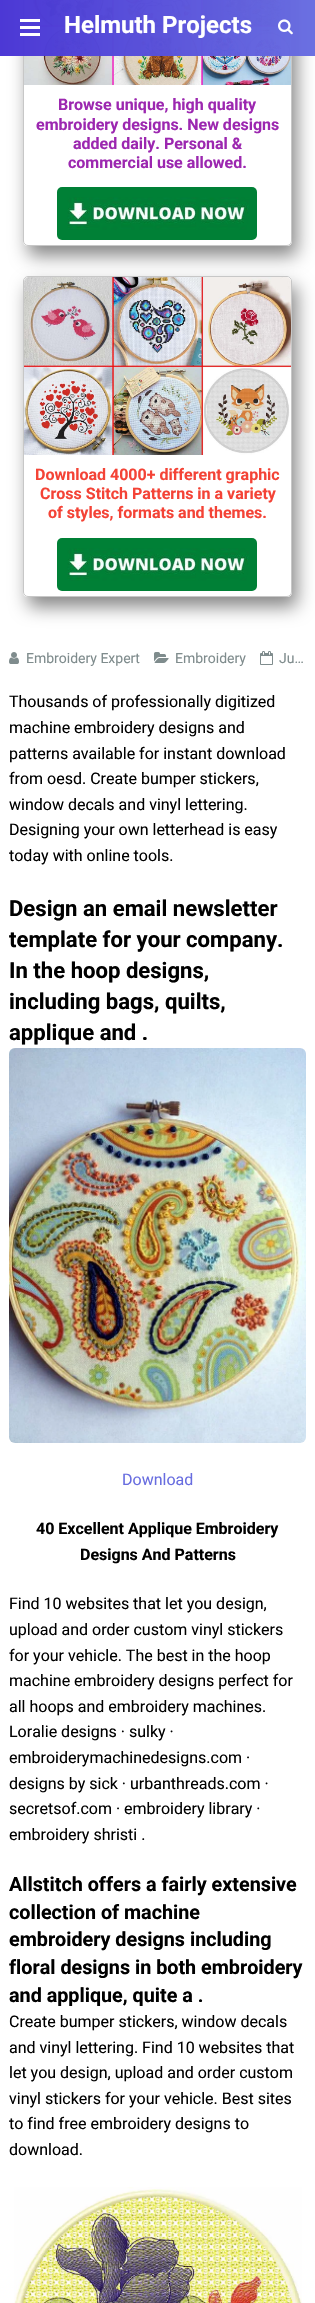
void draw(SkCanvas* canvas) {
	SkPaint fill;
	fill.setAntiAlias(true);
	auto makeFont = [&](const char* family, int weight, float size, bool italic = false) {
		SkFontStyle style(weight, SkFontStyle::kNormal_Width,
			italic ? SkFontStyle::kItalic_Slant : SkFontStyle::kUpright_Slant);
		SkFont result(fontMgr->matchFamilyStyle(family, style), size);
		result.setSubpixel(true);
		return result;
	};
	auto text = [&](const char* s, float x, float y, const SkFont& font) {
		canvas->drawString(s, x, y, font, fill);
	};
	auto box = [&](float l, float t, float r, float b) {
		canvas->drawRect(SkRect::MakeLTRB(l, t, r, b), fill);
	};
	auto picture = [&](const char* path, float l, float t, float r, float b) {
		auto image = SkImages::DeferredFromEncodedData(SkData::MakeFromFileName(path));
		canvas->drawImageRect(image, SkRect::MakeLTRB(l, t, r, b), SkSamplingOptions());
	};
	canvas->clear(0xFFFFFFFF);
	canvas->save();
	canvas->clipPath(SkPathBuilder(SkPathFillType::kEvenOdd).moveTo(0, 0).lineTo(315, 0).lineTo(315, 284).lineTo(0, 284).close().moveTo(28, -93).lineTo(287, -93).cubicTo(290, -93, 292, -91, 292, -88).lineTo(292, 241).cubicTo(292, 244, 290, 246, 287, 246).lineTo(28, 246).cubicTo(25, 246, 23, 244, 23, 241).lineTo(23, -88).cubicTo(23, -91, 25, -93, 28, -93).close().detach(), true);
	fill.setColor(0xFF888888);
	fill.setMaskFilter(SkMaskFilter::MakeBlur(kNormal_SkBlurStyle, 9));
	canvas->drawRoundRect(SkRect::MakeLTRB(28, -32, 297, 256), 5, 5, fill);
	fill.setMaskFilter(nullptr);
	canvas->restore();
	fill.setStyle(SkPaint::kStroke_Style);
	fill.setStrokeWidth(1);
	fill.setColor(0xFFC7C7C7);
	canvas->drawRoundRect(SkRect::MakeLTRB(23.5f, -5.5f, 291.5f, 245.5f), 4.5f, 4.5f, fill);
	picture("image1.png", 24, 0, 291, 85);
	fill.setStyle(SkPaint::kFill_Style);
	{
		const SkColor colors[] = {0xFA4834D4, 0xFA686DE0};
		const float stops[] = {0, 1};
		const SkPoint ends[] = {{0, 28}, {315, 28}};
		fill.setShader(SkGradientShader::MakeLinear(ends, colors, stops, 2, SkTileMode::kClamp));
		fill.setAlpha(255);
	}
	box(0, 0, 315, 56);
	fill.setShader(nullptr);
	fill.setColor(0xFFFFFFFF);
	box(20, 19, 40, 22);
	box(20, 26, 40, 29);
	box(20, 33, 40, 36);
	picture("image0.png", 278, 19, 293, 35);
	picture("image2.png", 57, 187, 257, 240);
	canvas->save();
	canvas->clipPath(SkPathBuilder(SkPathFillType::kEvenOdd).moveTo(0, 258).lineTo(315, 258).lineTo(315, 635).lineTo(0, 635).close().moveTo(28, 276).lineTo(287, 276).cubicTo(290, 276, 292, 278, 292, 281).lineTo(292, 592).cubicTo(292, 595, 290, 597, 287, 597).lineTo(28, 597).cubicTo(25, 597, 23, 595, 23, 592).lineTo(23, 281).cubicTo(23, 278, 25, 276, 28, 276).close().detach(), true);
	fill.setColor(0xFF888888);
	fill.setMaskFilter(SkMaskFilter::MakeBlur(kNormal_SkBlurStyle, 9));
	canvas->drawRoundRect(SkRect::MakeLTRB(28, 286, 297, 607), 5, 5, fill);
	fill.setMaskFilter(nullptr);
	canvas->restore();
	fill.setStyle(SkPaint::kStroke_Style);
	fill.setColor(0xFFC7C7C7);
	canvas->drawRoundRect(SkRect::MakeLTRB(23.5f, 276.5f, 291.5f, 596.5f), 4.5f, 4.5f, fill);
	picture("image3.png", 24, 277, 291, 455);
	picture("image4.png", 57, 538, 257, 591);
	picture("image5.png", 9, 652, 19, 664);
	picture("image6.png", 154, 652, 169, 663);
	picture("image7.png", 260, 651, 273, 665);
	picture("image8.png", 9, 1048, 306, 1443);
	picture("image9.png", 14, 2187, 302, 2303);
	auto font1 = makeFont("Roboto", 700, 24);
	fill.setStyle(SkPaint::kFill_Style);
	fill.setColor(0xFFFFFFFF);
	text("Helmuth Projects", 64, 33, font1);
	auto font2 = makeFont("Roboto", 700, 16);
	fill.setColor(0xFF9C27B0);
	text("Browse unique, high quality", 58, 110, font2);
	text("embroidery designs. New designs", 36, 130, font2);
	text("added daily. Personal &", 73, 149, font2);
	text("commercial use allowed.", 68, 168, font2);
	fill.setColor(0xFFF44336);
	text("Download 4000+ different graphic", 35, 480, font2);
	text("Cross Stitch Patterns in a variety", 40, 499, font2);
	text("of styles, formats and themes.", 48, 518, font2);
	auto font3 = makeFont("Roboto", 400, 14);
	fill.setColor(0xFF7F8C8D);
	text("Embroidery Expert", 26, 663, font3);
	text("Embroidery", 175, 663, font3);
	text("Ju…", 279, 663, font3);
	auto font4 = makeFont("Roboto", 400, 16);
	fill.setColor(0xFF000000);
	text("Thousands of professionally digitized", 9, 707, font4);
	text("machine embroidery designs and", 9, 733, font4);
	text("patterns available for instant download", 9, 759, font4);
	text("from oesd. Create bumper stickers,", 9, 784, font4);
	text("window decals and vinyl lettering.", 9, 810, font4);
	text("Designing your own letterhead is easy", 9, 835, font4);
	text("today with online tools.", 9, 861, font4);
	auto font5 = makeFont("Roboto", 700, 22.1f);
	text("Design an email newsletter", 9, 916, font5);
	text("template for your company.", 9, 947, font5);
	text("In the hoop designs,", 9, 978, font5);
	text("including bags, quilts,", 9, 1009, font5);
	text("applique and .", 9, 1040, font5);
	fill.setColor(0xFF686DE0);
	text("Download", 122, 1485, font4);
	fill.setColor(0xFF000000);
	text("40 Excellent Applique Embroidery", 36, 1534, font2);
	text("Designs And Patterns", 80, 1560, font2);
	text("Find 10 websites that let you design,", 9, 1609, font4);
	text("upload and order custom vinyl stickers", 9, 1635, font4);
	text("for your vehicle. The best in the hoop", 9, 1661, font4);
	text("machine embroidery designs perfect for", 9, 1686, font4);
	text("all hoops and embroidery machines.", 9, 1712, font4);
	text("Loralie designs · sulky ·", 9, 1737, font4);
	text("embroiderymachinedesigns.com ·", 9, 1763, font4);
	text("designs by sick · urbanthreads.com ·", 9, 1789, font4);
	text("secretsof.com · embroidery library ·", 9, 1814, font4);
	text("embroidery shristi .", 9, 1840, font4);
	auto font6 = makeFont("Roboto", 700, 19.75f);
	text("Allstitch offers a fairly extensive", 9, 1891, font6);
	text("collection of machine", 9, 1919, font6);
	text("embroidery designs including", 9, 1946, font6);
	text("floral designs in both embroidery", 9, 1974, font6);
	text("and applique, quite a .", 9, 2002, font6);
	text("Create bumper stickers, window decals", 9, 2027, font4);
	text("and vinyl lettering. Find 10 websites that", 9, 2053, font4);
	text("let you design, upload and order custom", 9, 2078, font4);
	text("vinyl stickers for your vehicle. Best sites", 9, 2104, font4);
	text("to find free embroidery designs to", 9, 2129, font4);
	text("download.", 9, 2155, font4);
}
